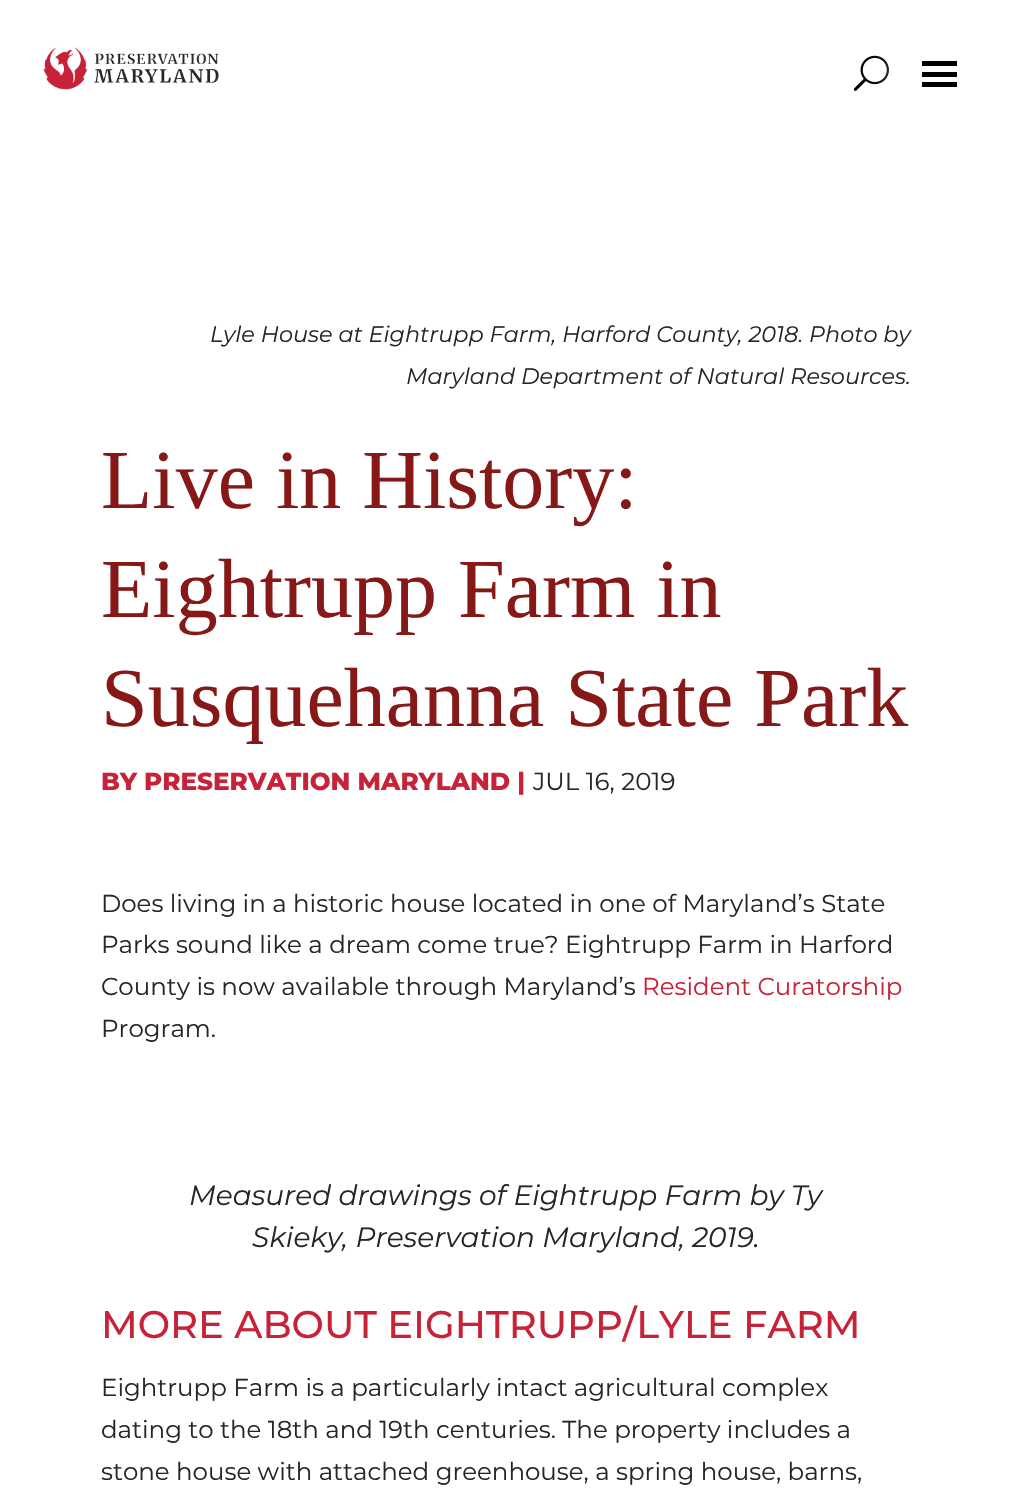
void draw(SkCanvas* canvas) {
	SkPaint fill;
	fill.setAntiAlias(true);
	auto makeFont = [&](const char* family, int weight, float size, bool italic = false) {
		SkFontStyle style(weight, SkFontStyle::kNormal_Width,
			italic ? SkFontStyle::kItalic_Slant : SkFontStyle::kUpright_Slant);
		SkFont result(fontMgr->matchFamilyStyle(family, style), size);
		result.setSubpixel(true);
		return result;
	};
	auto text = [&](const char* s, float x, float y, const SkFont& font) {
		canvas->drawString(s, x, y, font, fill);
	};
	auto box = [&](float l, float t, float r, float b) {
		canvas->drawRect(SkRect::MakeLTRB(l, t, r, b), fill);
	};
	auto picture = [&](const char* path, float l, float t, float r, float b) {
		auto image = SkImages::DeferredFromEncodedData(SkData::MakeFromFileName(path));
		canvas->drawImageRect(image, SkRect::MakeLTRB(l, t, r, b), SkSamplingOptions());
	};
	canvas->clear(0xFFFFFFFF);
	picture("image0.png", 43, 47, 219, 90);
	picture("image1.png", 853, 55, 889, 91);
	canvas->save();
	canvas->clipPath(SkPathBuilder(SkPathFillType::kEvenOdd).moveTo(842, 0).lineTo(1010, 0).lineTo(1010, 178).lineTo(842, 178).close().moveTo(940, 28).cubicTo(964.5f, 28, 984, 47.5f, 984, 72).cubicTo(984, 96.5f, 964.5f, 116, 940, 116).cubicTo(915.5f, 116, 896, 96.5f, 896, 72).cubicTo(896, 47.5f, 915.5f, 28, 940, 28).close().detach(), true);
	fill.setColor(0x8FFFFFFF);
	fill.setMaskFilter(SkMaskFilter::MakeBlur(kNormal_SkBlurStyle, 17.5f));
	canvas->drawRoundRect(SkRect::MakeLTRB(896, 37, 984, 124), 43.5f, 43.5f, fill);
	fill.setMaskFilter(nullptr);
	canvas->restore();
	fill.setColor(0xFF000000);
	box(922, 72, 957, 77);
	box(922, 61, 957, 66);
	box(922, 82, 957, 87);
	auto font1 = makeFont("Montserrat", 400, 22.4f, true);
	fill.setColor(0xFF262626);
	text("Lyle House at Eightrupp Farm, Harford County, 2018. Photo by", 210, 342, font1);
	text("Maryland Department of Natural Resources.", 406, 384, font1);
	auto font2 = makeFont("Liberation Serif", 400, 84);
	fill.setColor(0xFF871818);
	text("Live in History:", 101, 508, font2);
	text("Eightrupp Farm in", 101, 617, font2);
	text("Susquehanna State Park", 101, 726, font2);
	auto font3 = makeFont("Montserrat", 800, 24.6f);
	fill.setColor(0xFFC82238);
	text("BY PRESERVATION MARYLAND |", 101, 790, font3);
	auto font4 = makeFont("Montserrat", 400, 24.6f);
	fill.setColor(0xFF262626);
	text("JUL 16, 2019", 533, 790, font4);
	auto font5 = makeFont("Montserrat", 400, 24.5f);
	text("Does living in a historic house located in one of Maryland’s State", 101, 912, font5);
	text("Parks sound like a dream come true? Eightrupp Farm in Harford", 101, 953, font5);
	text("County is now available through Maryland’s", 101, 995, font5);
	fill.setColor(0xFFC82238);
	text("Resident Curatorship", 642, 995, font5);
	fill.setColor(0xFF262626);
	text("Program.", 101, 1037, font5);
	auto font6 = makeFont("Montserrat", 400, 28, true);
	text("Measured drawings of Eightrupp Farm by Ty", 189, 1205, font6);
	text("Skieky, Preservation Maryland, 2019.", 252, 1247, font6);
	auto font7 = makeFont("Montserrat", 500, 38.5f);
	fill.setColor(0xFFC82238);
	text("MORE ABOUT EIGHTRUPP/LYLE FARM", 101, 1338, font7);
	fill.setColor(0xFF262626);
	text("Eightrupp Farm is a particularly intact agricultural complex", 101, 1396, font5);
	text("dating to the 18th and 19th centuries. The property includes a", 101, 1438, font5);
	text("stone house with attached greenhouse, a spring house, barns,", 101, 1480, font5);
}
